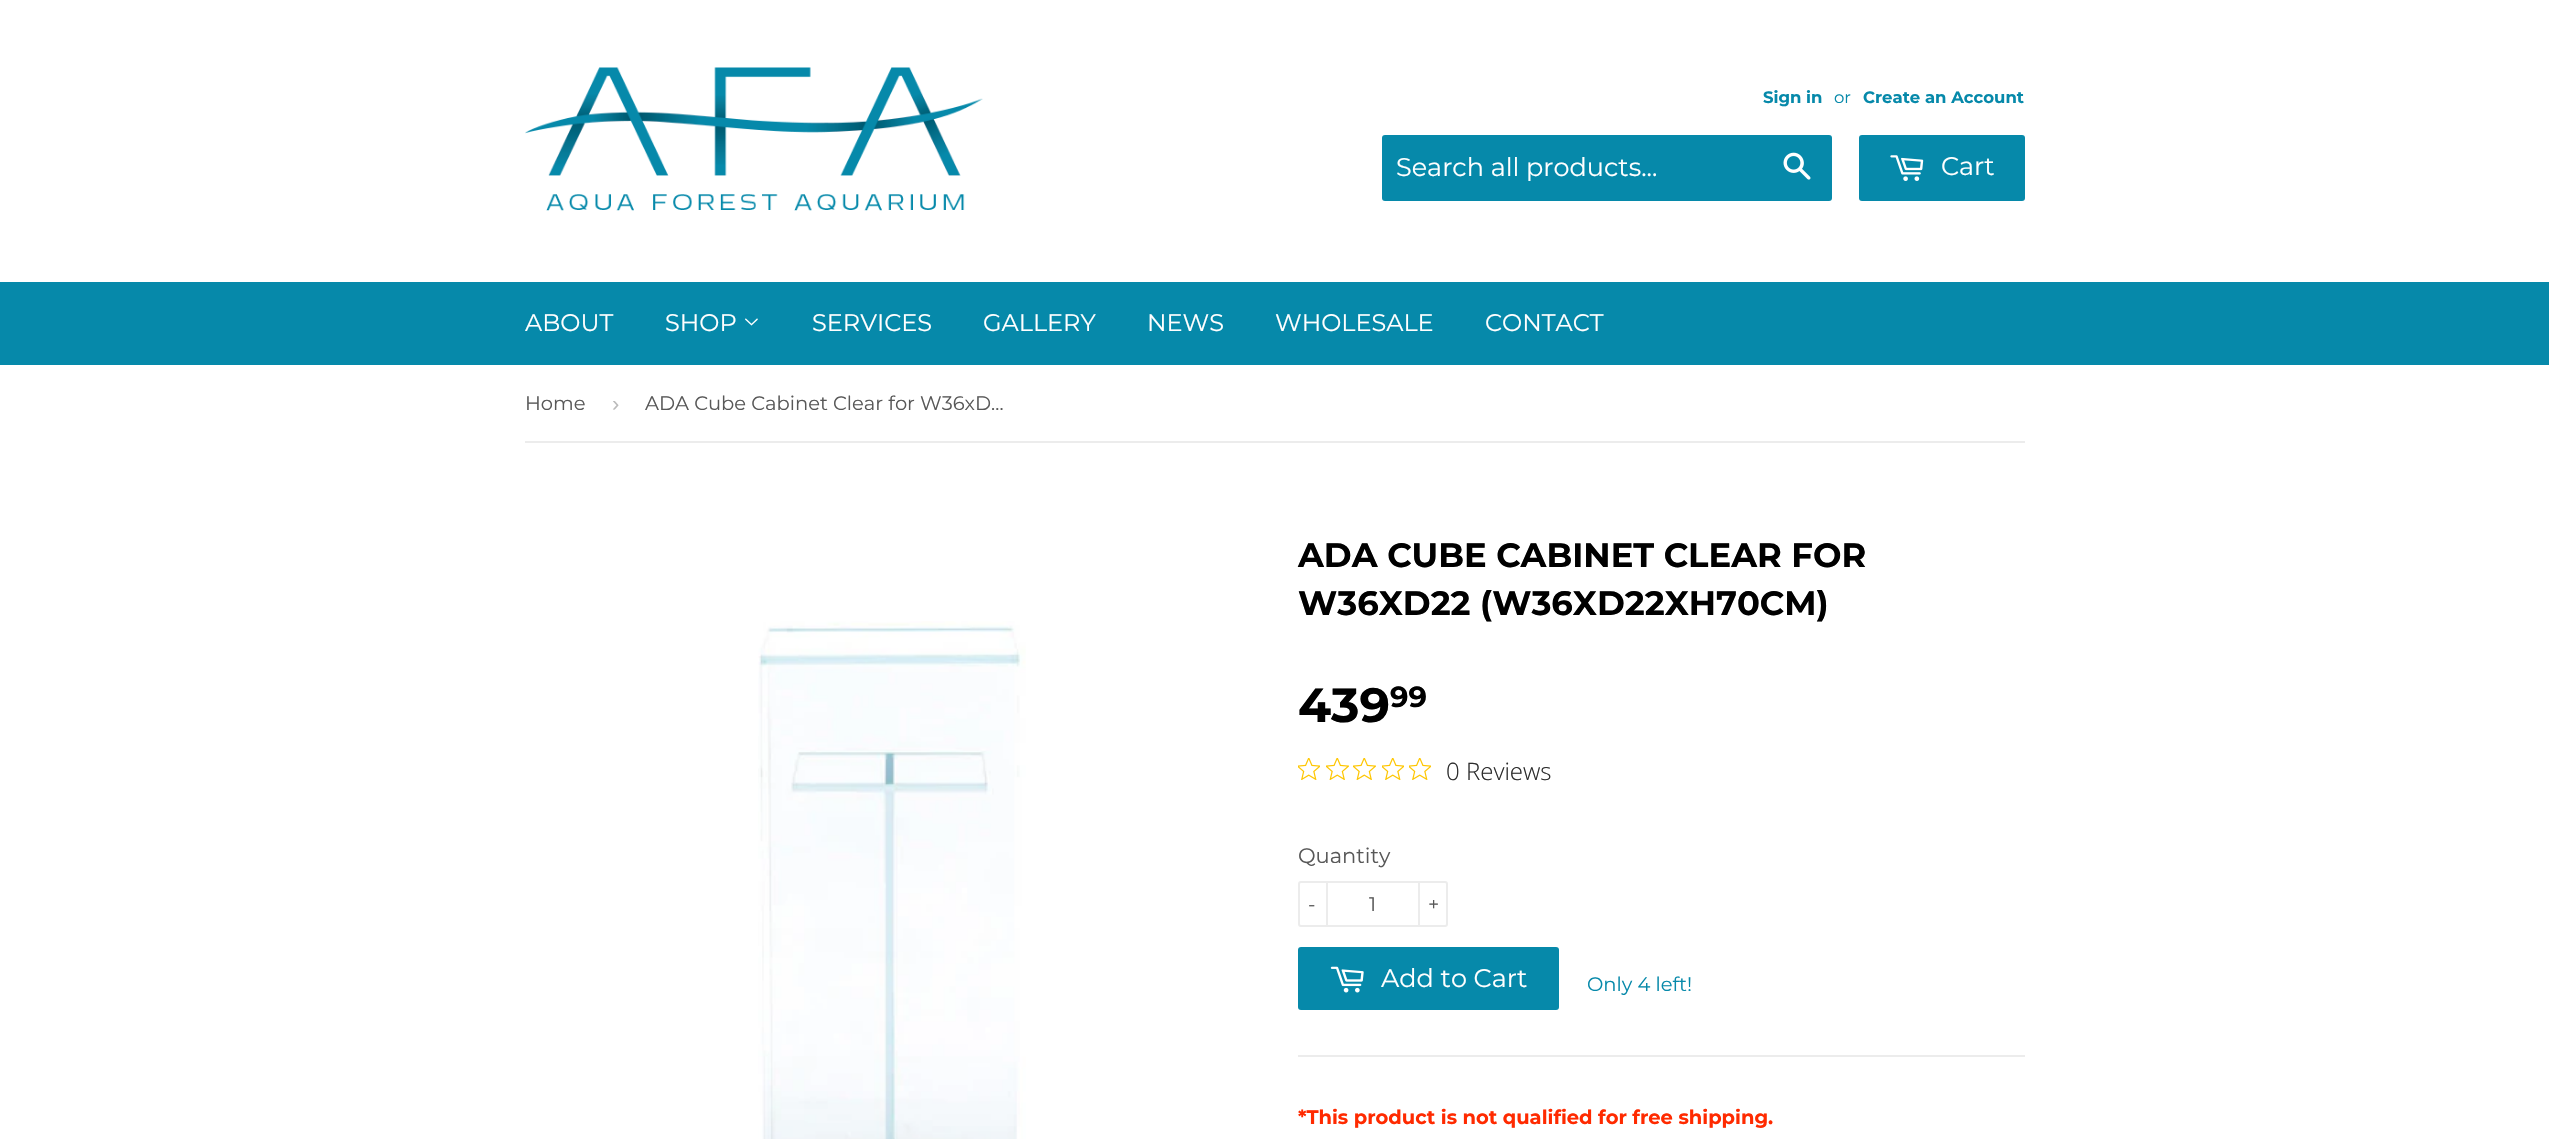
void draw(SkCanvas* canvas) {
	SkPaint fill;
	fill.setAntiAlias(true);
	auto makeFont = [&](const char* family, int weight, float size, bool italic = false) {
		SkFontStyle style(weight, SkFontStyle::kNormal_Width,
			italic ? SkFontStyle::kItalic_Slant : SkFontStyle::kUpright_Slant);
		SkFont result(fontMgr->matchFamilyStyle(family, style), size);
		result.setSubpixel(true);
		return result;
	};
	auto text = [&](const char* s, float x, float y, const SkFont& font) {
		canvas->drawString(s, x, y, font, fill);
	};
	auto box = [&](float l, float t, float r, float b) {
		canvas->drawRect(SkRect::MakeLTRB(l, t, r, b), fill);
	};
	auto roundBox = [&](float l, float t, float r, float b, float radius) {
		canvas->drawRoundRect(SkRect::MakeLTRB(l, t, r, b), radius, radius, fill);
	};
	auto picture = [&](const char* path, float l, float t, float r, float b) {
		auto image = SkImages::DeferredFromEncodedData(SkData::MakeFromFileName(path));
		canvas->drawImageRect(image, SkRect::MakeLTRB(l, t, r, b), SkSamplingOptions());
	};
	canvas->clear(0xFFFFFFFF);
	picture("image0.png", 525, 67, 983, 211);
	fill.setColor(0xFF0689AA);
	roundBox(1382, 135, 1832, 201, 3);
	picture("image1.png", 1783, 152, 1811, 180);
	roundBox(1859, 135, 2025, 201, 3);
	picture("image2.png", 1890, 155, 1924, 181);
	box(0, 282, 2549, 365);
	picture("image3.png", 745, 318, 758, 326);
	fill.setColor(0xFFECECEC);
	box(525, 441, 2025, 443);
	picture("image4.png", 758, 621, 1026, 1139);
	picture("image5.png", 1298, 758, 1320, 780);
	picture("image6.png", 1326, 758, 1349, 780);
	picture("image6.png", 1353, 758, 1376, 780);
	picture("image5.png", 1382, 758, 1404, 780);
	picture("image5.png", 1409, 758, 1431, 780);
	fill.setStyle(SkPaint::kStroke_Style);
	fill.setStrokeWidth(2);
	canvas->drawRoundRect(SkRect::MakeLTRB(1299, 882, 1447, 926), 2, 2, fill);
	fill.setStyle(SkPaint::kFill_Style);
	box(1326, 881, 1328, 927);
	box(1418, 881, 1420, 927);
	fill.setColor(0xFF0689AA);
	roundBox(1298, 947, 1559, 1010, 3);
	picture("image7.png", 1330, 966, 1364, 993);
	fill.setColor(0xFFECECEC);
	box(1298, 1055, 2025, 1057);
	auto font1 = makeFont("Montserrat", 700, 16.5f);
	fill.setColor(0xFF0689AA);
	text("Sign in", 1763, 103, font1);
	auto font2 = makeFont("Montserrat", 400, 16.5f);
	text("or", 1834, 103, font2);
	text("Create an Account", 1863, 103, font1);
	auto font3 = makeFont("Montserrat", 400, 25.5f);
	fill.setColor(0xFFFFFFFF);
	text("Search all products...", 1396, 176, font3);
	text("Cart", 1941, 175, font3);
	auto font4 = makeFont("Montserrat", 400, 24);
	text("ABOUT", 525, 331, font4);
	text("SHOP", 665, 331, font4);
	text("SERVICES", 812, 331, font4);
	text("GALLERY", 983, 331, font4);
	text("NEWS", 1147, 331, font4);
	text("WHOLESALE", 1275, 331, font4);
	text("CONTACT", 1485, 331, font4);
	auto font5 = makeFont("Montserrat", 400, 19.5f);
	fill.setColor(0xFF585858);
	text("Home", 525, 410, font5);
	auto font6 = makeFont("Liberation Sans", 400, 22);
	fill.setColor(0xFFBBBBBB);
	text("›", 612, 411, font6);
	fill.setColor(0xFF585858);
	text("ADA Cube Cabinet Clear for W36xD…", 645, 410, font5);
	auto font7 = makeFont("Montserrat", 700, 33.75f);
	fill.setColor(0xFF000000);
	text("ADA CUBE CABINET CLEAR FOR", 1298, 567, font7);
	text("W36XD22 (W36XD22XH70CM)", 1298, 615, font7);
	auto font8 = makeFont("Montserrat", 700, 48);
	text("439", 1298, 722, font8);
	auto font9 = makeFont("Montserrat", 700, 29);
	text("99", 1390, 707, font9);
	auto font10 = makeFont("Open Sans", 300, 24);
	fill.setColor(0xFF2C2C2C);
	text("0 Reviews", 1446, 780, font10);
	auto font11 = makeFont("Montserrat", 400, 21);
	fill.setColor(0xFF585858);
	text("Quantity", 1298, 863, font11);
	text("-", 1308, 911, font5);
	text("1", 1369, 911, font5);
	text("+", 1428, 911, font5);
	fill.setColor(0xFFFFFFFF);
	text("Add to Cart", 1381, 987, font3);
	fill.setColor(0xFF0689AA);
	text("Only 4 left!", 1587, 991, font5);
	auto font12 = makeFont("Montserrat", 700, 19.5f);
	fill.setColor(0xFFFF2A00);
	text("*This product is not qualified for free shipping.", 1298, 1124, font12);
}
